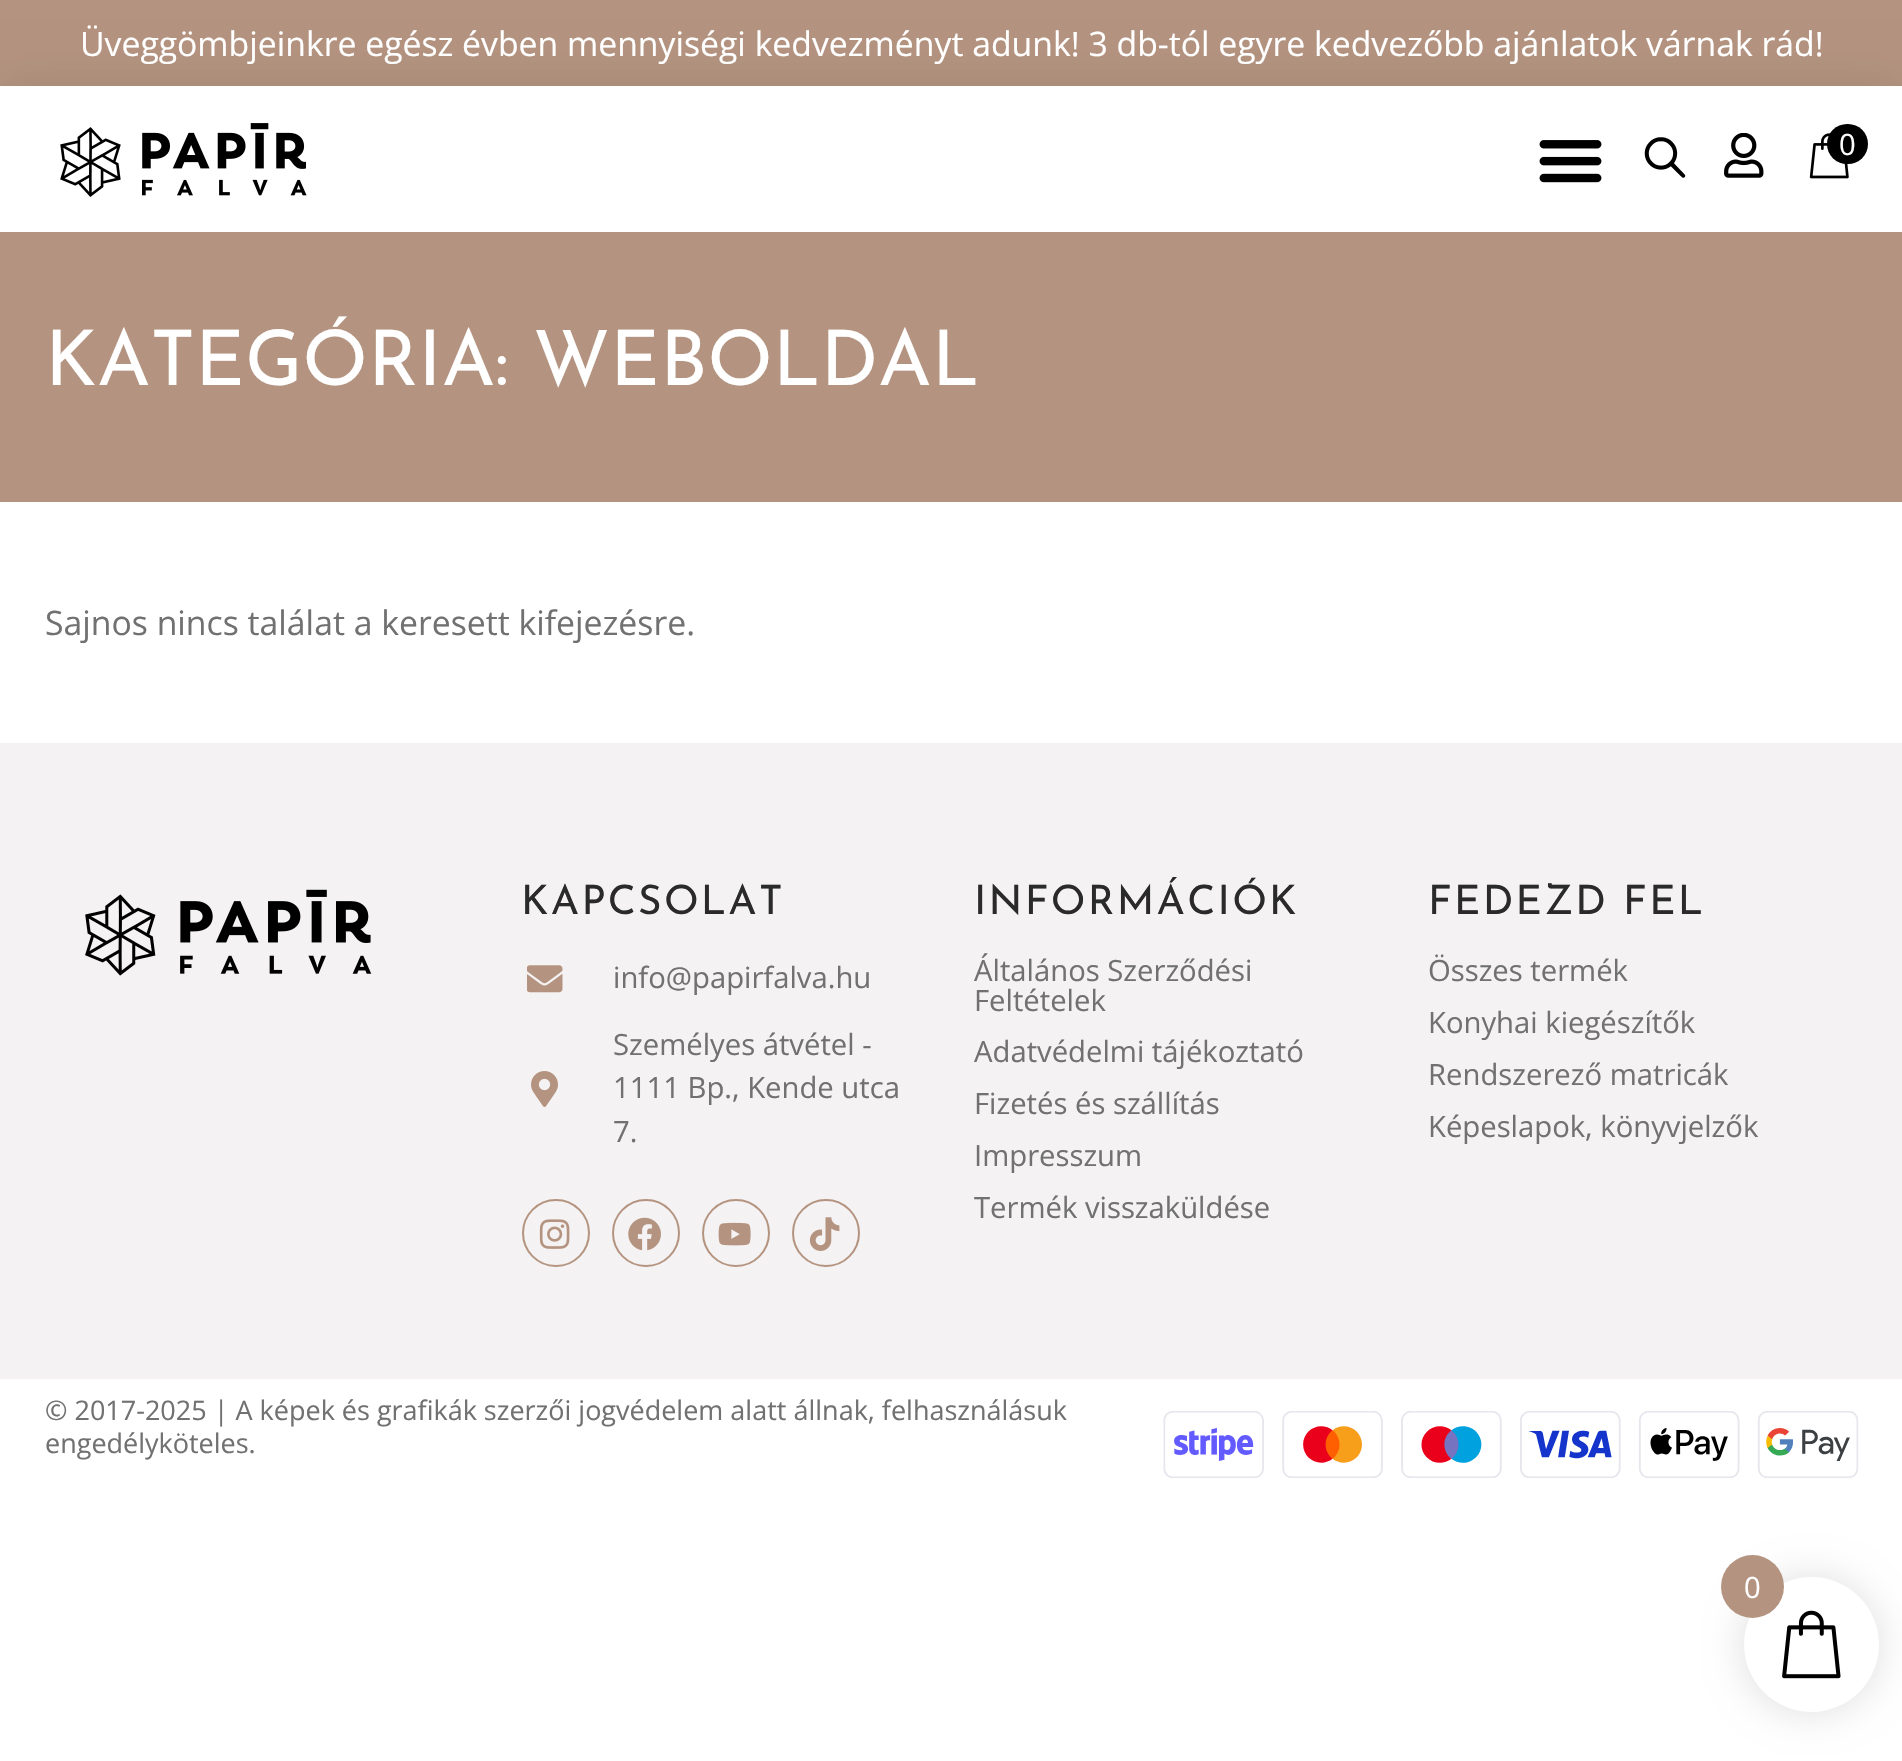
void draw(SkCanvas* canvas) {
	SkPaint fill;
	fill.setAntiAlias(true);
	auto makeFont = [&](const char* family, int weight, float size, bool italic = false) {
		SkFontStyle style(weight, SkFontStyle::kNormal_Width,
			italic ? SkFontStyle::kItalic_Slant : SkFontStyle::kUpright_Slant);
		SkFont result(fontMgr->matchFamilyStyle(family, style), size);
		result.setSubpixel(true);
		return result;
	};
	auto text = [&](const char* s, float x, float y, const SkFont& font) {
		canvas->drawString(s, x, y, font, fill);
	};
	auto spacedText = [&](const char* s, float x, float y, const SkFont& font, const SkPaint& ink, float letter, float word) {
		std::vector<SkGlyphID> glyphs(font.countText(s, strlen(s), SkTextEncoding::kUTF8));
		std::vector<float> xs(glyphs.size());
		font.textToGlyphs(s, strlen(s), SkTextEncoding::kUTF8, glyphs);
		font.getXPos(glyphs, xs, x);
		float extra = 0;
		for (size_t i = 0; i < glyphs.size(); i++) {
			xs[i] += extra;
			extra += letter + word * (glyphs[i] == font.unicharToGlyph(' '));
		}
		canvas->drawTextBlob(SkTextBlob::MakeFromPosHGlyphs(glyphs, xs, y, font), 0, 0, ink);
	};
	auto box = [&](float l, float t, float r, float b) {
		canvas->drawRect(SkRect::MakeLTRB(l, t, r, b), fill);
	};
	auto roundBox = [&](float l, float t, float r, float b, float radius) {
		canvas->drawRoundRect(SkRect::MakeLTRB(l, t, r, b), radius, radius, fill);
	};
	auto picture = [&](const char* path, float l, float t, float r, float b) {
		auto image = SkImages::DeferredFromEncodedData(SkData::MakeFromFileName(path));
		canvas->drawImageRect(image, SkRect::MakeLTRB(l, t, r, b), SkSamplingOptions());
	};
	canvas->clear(0xFFFFFFFF);
	fill.setColor(0xFFB49480);
	box(0, 0, 1902, 86);
	fill.setColor(0x1A000000);
	fill.setMaskFilter(SkMaskFilter::MakeBlur(kNormal_SkBlurStyle, 22.5f));
	canvas->drawRect(SkRect::MakeLTRB(0, 86, 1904, 232), fill);
	fill.setMaskFilter(nullptr);
	fill.setColor(0xFFFFFFFF);
	box(0, 86, 1902, 232);
	picture("image0.png", 60, 123, 307, 197);
	picture("image1.png", 1539, 140, 1602, 183);
	picture("image2.png", 1644, 137, 1686, 178);
	picture("image3.png", 1724, 133, 1764, 178);
	picture("image4.png", 1809, 133, 1849, 179);
	fill.setColor(0xFF000000);
	roundBox(1827, 124, 1868, 164, 20);
	fill.setColor(0xFFB49480);
	box(0, 232, 1902, 502);
	fill.setColor(0xFFF4F2F2);
	box(0, 743, 1902, 1379);
	picture("image5.png", 85, 889, 372, 976);
	picture("image6.png", 527, 965, 563, 993);
	picture("image7.png", 531, 1071, 558, 1107);
	fill.setStyle(SkPaint::kStroke_Style);
	fill.setStrokeWidth(2);
	fill.setColor(0xFFB49480);
	canvas->drawCircle(556, 1233, 33, fill);
	picture("image8.png", 539, 1219, 570, 1249);
	canvas->drawCircle(646, 1233, 33, fill);
	picture("image9.png", 628, 1217, 661, 1251);
	canvas->drawCircle(736, 1233, 33, fill);
	picture("image10.png", 718, 1222, 751, 1246);
	canvas->drawCircle(826, 1233, 33, fill);
	picture("image11.png", 809, 1217, 840, 1251);
	picture("image12.png", 1163, 1411, 1859, 1478);
	fill.setStyle(SkPaint::kFill_Style);
	fill.setColor(0x1A000000);
	fill.setMaskFilter(SkMaskFilter::MakeBlur(kNormal_SkBlurStyle, 17));
	canvas->drawRoundRect(SkRect::MakeLTRB(1739, 1573, 1883, 1717), 72, 72, fill);
	fill.setMaskFilter(nullptr);
	fill.setColor(0xFFFFFFFF);
	canvas->drawCircle(1811.5f, 1644.5f, 67.5f, fill);
	picture("image13.png", 1782, 1610, 1841, 1679);
	fill.setColor(0xFFB49480);
	canvas->drawCircle(1752.5f, 1586.5f, 31.5f, fill);
	auto font1 = makeFont("Open Sans", 400, 33.75f);
	fill.setColor(0xFFFFFFFF);
	text("Üveggömbjeinkre egész évben mennyiségi kedvezményt adunk! 3 db-tól egyre kedvezőbb ajánlatok várnak rád!", 80, 56, font1);
	auto font2 = makeFont("Open Sans", 400, 29.25f);
	text("0", 1839, 155, font2);
	auto font3 = makeFont("Josefin Sans", 400, 76.5f);
	text("KATEGÓRIA: WEBOLDAL", 45, 385, font3);
	fill.setColor(0xFF717171);
	text("Sajnos nincs találat a keresett kifejezésre.", 45, 635, font1);
	auto font4 = makeFont("Josefin Sans", 400, 40.5f);
	fill.setColor(0xFF2A2A2A);
	spacedText("KAPCSOLAT", 521, 914, font4, fill, 2.25f, 0);
	fill.setColor(0xFF717171);
	text("info@papirfalva.hu", 613, 988, font2);
	text("Személyes átvétel -", 613, 1055, font2);
	text("1111 Bp., Kende utca", 613, 1098, font2);
	text("7.", 613, 1142, font2);
	fill.setColor(0xFF2A2A2A);
	spacedText("INFORMÁCIÓK", 974, 914, font4, fill, 2.25f, 0);
	fill.setColor(0xFF717171);
	text("Általános Szerződési", 974, 981, font2);
	text("Feltételek", 974, 1011, font2);
	text("Adatvédelmi tájékoztató", 974, 1062, font2);
	text("Fizetés és szállítás", 974, 1114, font2);
	text("Impresszum", 974, 1166, font2);
	text("Termék visszaküldése", 974, 1218, font2);
	fill.setColor(0xFF2A2A2A);
	spacedText("FEDEZD FEL", 1428, 914, font4, fill, 2.25f, 0);
	fill.setColor(0xFF717171);
	text("Összes termék", 1428, 981, font2);
	text("Konyhai kiegészítők", 1428, 1033, font2);
	text("Rendszerező matricák", 1428, 1085, font2);
	text("Képeslapok, könyvjelzők", 1428, 1137, font2);
	auto font5 = makeFont("Open Sans", 400, 27);
	text("© 2017-2025 | A képek és grafikák szerzői jogvédelem alatt állnak, felhasználásuk", 45, 1420, font5);
	text("engedélyköteles.", 45, 1453, font5);
	fill.setColor(0xFFFFFFFF);
	text("0", 1744, 1598, font2);
}
